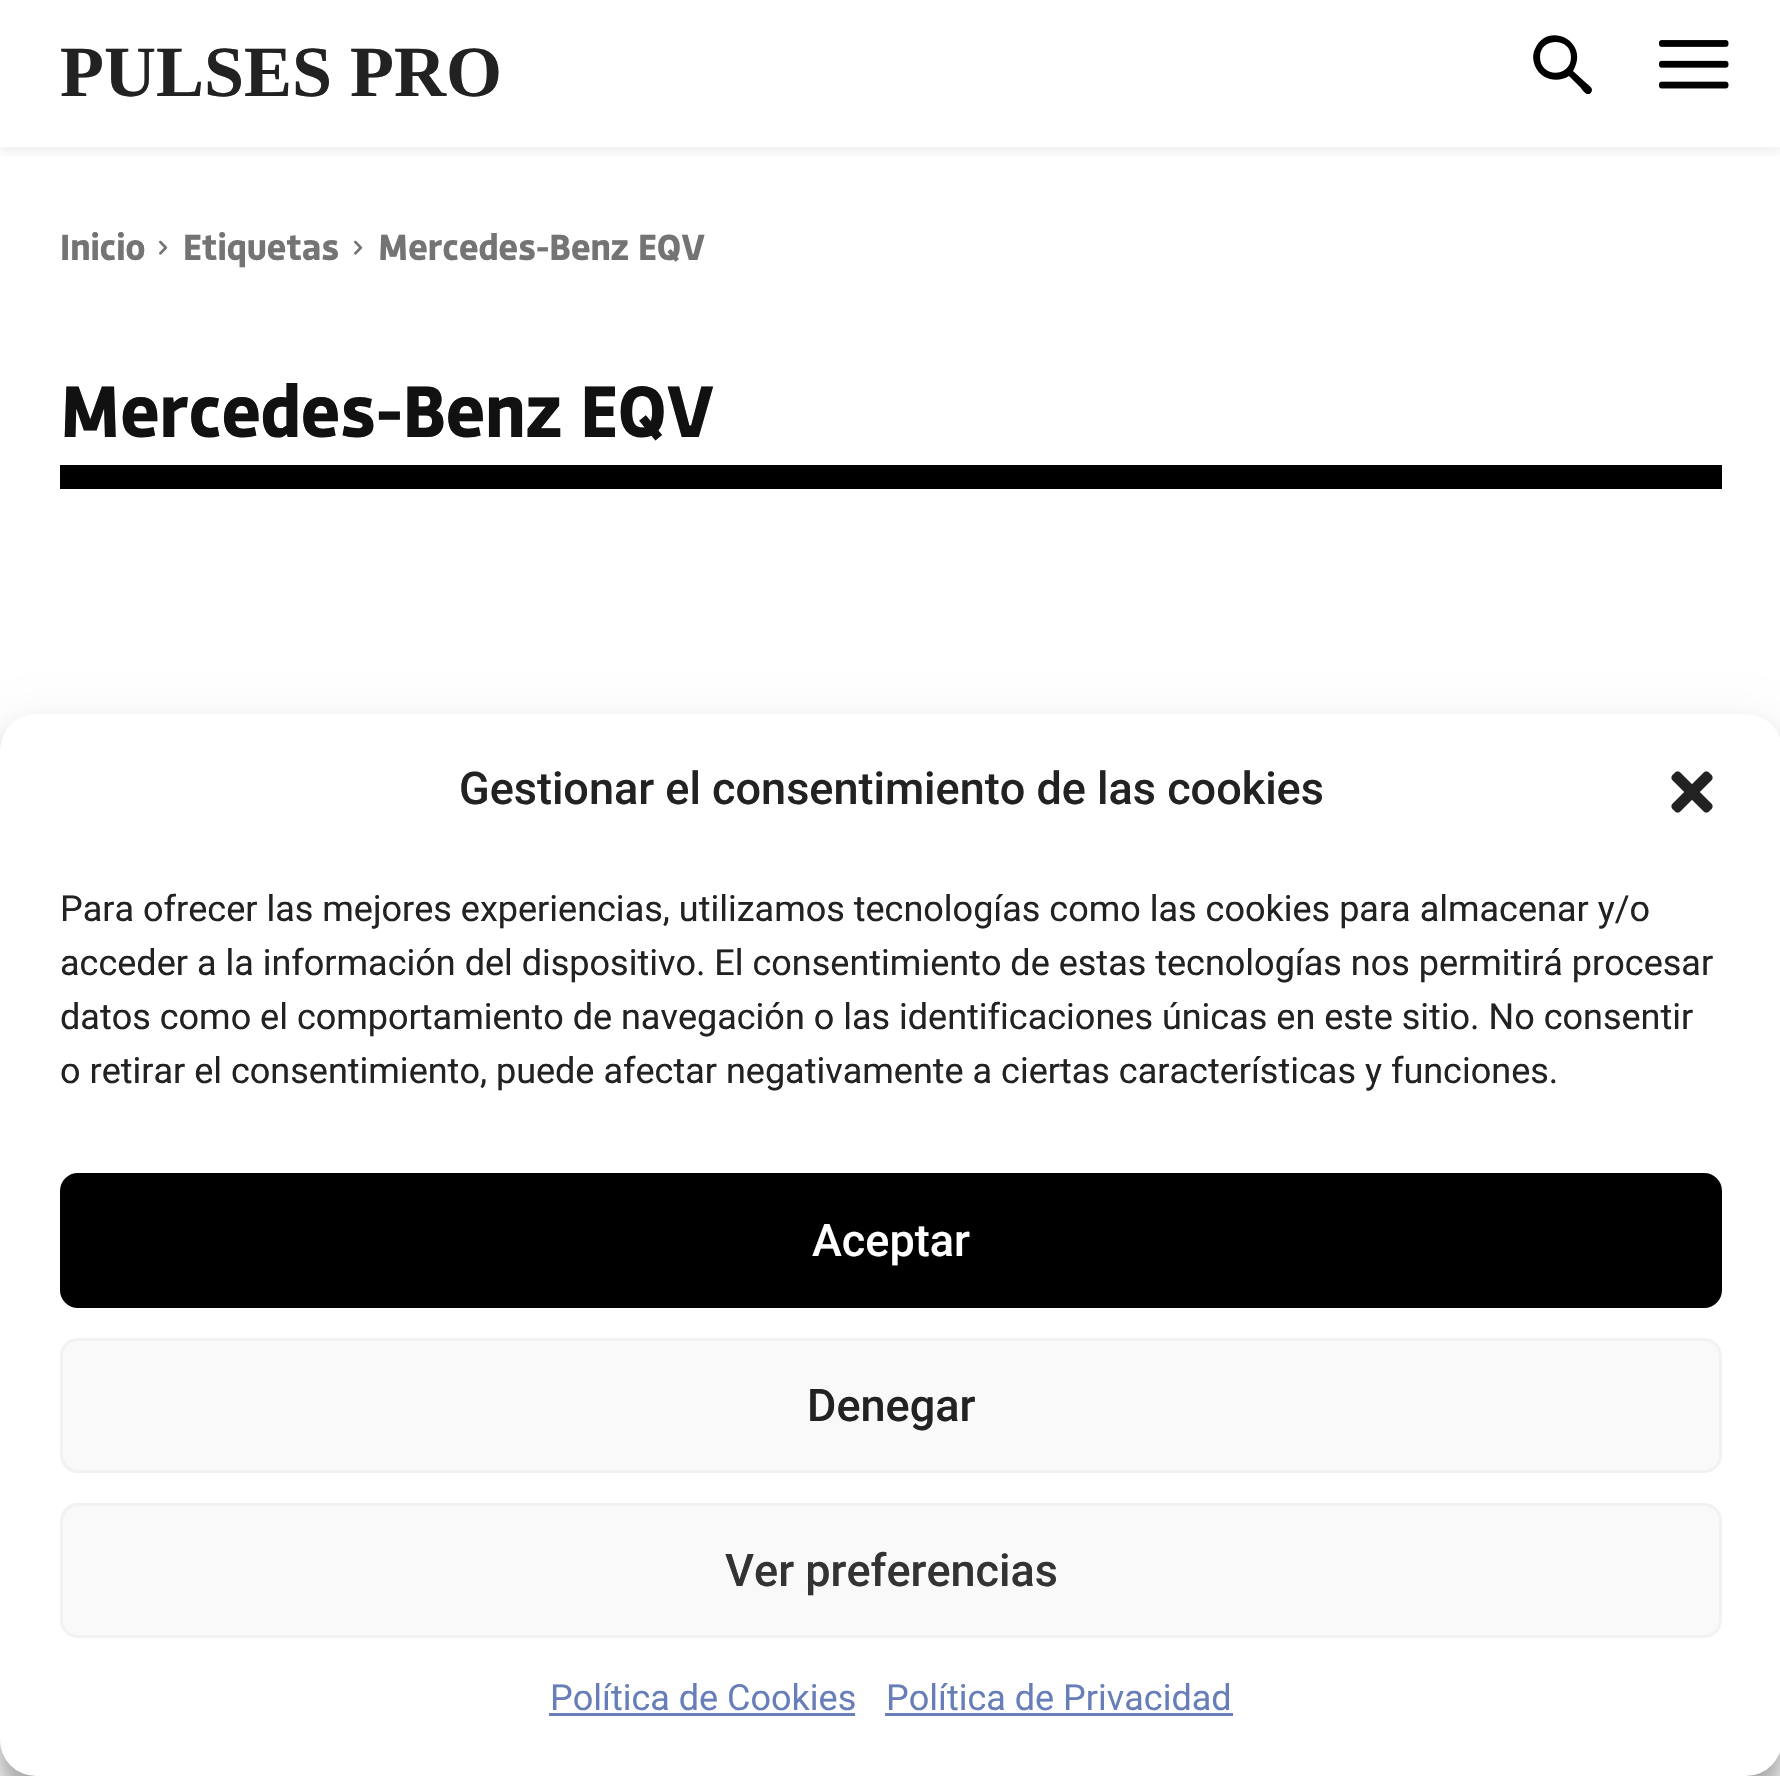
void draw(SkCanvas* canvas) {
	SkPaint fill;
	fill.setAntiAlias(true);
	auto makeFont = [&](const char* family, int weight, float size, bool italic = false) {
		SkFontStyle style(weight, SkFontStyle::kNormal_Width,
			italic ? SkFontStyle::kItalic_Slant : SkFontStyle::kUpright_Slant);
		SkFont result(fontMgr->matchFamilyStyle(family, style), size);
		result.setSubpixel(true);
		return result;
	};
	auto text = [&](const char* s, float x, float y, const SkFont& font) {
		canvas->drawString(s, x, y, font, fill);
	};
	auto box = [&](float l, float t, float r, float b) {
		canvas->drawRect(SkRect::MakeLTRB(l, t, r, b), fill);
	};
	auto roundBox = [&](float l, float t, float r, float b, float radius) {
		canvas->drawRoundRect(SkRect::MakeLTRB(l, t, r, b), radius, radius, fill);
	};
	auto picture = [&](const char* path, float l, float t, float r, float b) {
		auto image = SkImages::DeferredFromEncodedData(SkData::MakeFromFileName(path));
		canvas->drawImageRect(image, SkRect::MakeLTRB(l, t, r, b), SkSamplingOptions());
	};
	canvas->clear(0xFFFFFFFF);
	fill.setColor(0xFF000000);
	canvas->drawPath(SkPathBuilder().moveTo(1571, 57).cubicTo(1571, 78, 1540, 78, 1540, 57).cubicTo(1540, 37, 1571, 37, 1571, 57).close().moveTo(1592, 90).cubicTo(1592, 87, 1587, 84, 1585, 82).lineTo(1573, 71).cubicTo(1591, 41, 1547, 20, 1535, 49).cubicTo(1532, 55, 1533, 62, 1536, 68).cubicTo(1542, 80, 1558, 83, 1569, 76).lineTo(1580, 87).cubicTo(1582, 89, 1585, 95, 1589, 94).cubicTo(1590, 94, 1592, 92, 1592, 90).close().detach(), fill);
	picture("image0.png", 1659, 40, 1729, 89);
	canvas->save();
	canvas->clipRect(SkRect::MakeLTRB(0, 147, 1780, 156));
	fill.setColor(0x0F000000);
	fill.setMaskFilter(SkMaskFilter::MakeBlur(kNormal_SkBlurStyle, 6));
	canvas->drawRect(SkRect::MakeLTRB(0, 6, 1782, 153), fill);
	fill.setMaskFilter(nullptr);
	canvas->restore();
	fill.setColor(0xFF000000);
	box(60, 465, 1722, 489);
	picture("image1.png", 159, 240, 168, 255);
	picture("image1.png", 354, 240, 363, 255);
	fill.setColor(0x3B000000);
	fill.setMaskFilter(SkMaskFilter::MakeBlur(kNormal_SkBlurStyle, 9));
	canvas->drawRoundRect(SkRect::MakeLTRB(0, 732, 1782, 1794), 36, 36, fill);
	fill.setMaskFilter(nullptr);
	fill.setColor(0x30000000);
	fill.setMaskFilter(SkMaskFilter::MakeBlur(kNormal_SkBlurStyle, 30));
	canvas->drawRoundRect(SkRect::MakeLTRB(0, 744, 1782, 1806), 36, 36, fill);
	fill.setMaskFilter(nullptr);
	fill.setColor(0xFFFFFFFF);
	roundBox(0, 714, 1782, 1776, 36);
	picture("image2.png", 1671, 771, 1713, 813);
	fill.setColor(0xFF000000);
	canvas->drawRoundRect(SkRect::MakeLTRB(61.5f, 1174.5f, 1720.5f, 1306.5f), 16.5f, 16.5f, fill);
	fill.setStyle(SkPaint::kStroke_Style);
	fill.setStrokeWidth(3);
	canvas->drawRoundRect(SkRect::MakeLTRB(61.5f, 1174.5f, 1720.5f, 1306.5f), 16.5f, 16.5f, fill);
	fill.setStyle(SkPaint::kFill_Style);
	fill.setColor(0xFFF9F9F9);
	canvas->drawRoundRect(SkRect::MakeLTRB(61.5f, 1339.5f, 1720.5f, 1471.5f), 16.5f, 16.5f, fill);
	fill.setStyle(SkPaint::kStroke_Style);
	fill.setColor(0xFFF2F2F2);
	canvas->drawRoundRect(SkRect::MakeLTRB(61.5f, 1339.5f, 1720.5f, 1471.5f), 16.5f, 16.5f, fill);
	fill.setStyle(SkPaint::kFill_Style);
	fill.setColor(0xFFF9F9F9);
	canvas->drawRoundRect(SkRect::MakeLTRB(61.5f, 1504.5f, 1720.5f, 1636.5f), 16.5f, 16.5f, fill);
	fill.setStyle(SkPaint::kStroke_Style);
	fill.setColor(0xFFF2F2F2);
	canvas->drawRoundRect(SkRect::MakeLTRB(61.5f, 1504.5f, 1720.5f, 1636.5f), 16.5f, 16.5f, fill);
	fill.setStyle(SkPaint::kFill_Style);
	fill.setColor(0xFF677EB8);
	box(549, 1713, 855, 1716);
	box(885, 1713, 1233, 1716);
	auto font1 = makeFont("Liberation Serif", 700, 72);
	fill.setColor(0xFF222222);
	text("PULSES PRO", 60, 96, font1);
	auto font2 = makeFont("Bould", 700, 36);
	fill.setColor(0xFF747474);
	text("Inicio", 60, 260, font2);
	text("Etiquetas", 183, 260, font2);
	text("Mercedes-Benz EQV", 378, 260, font2);
	auto font3 = makeFont("Bould", 700, 72);
	fill.setColor(0xFF111111);
	text("Mercedes-Benz EQV", 60, 437, font3);
	auto font4 = makeFont("Roboto", 500, 45);
	fill.setColor(0xFF222222);
	text("Gestionar el consentimiento de las cookies", 459, 804, font4);
	auto font5 = makeFont("Roboto", 400, 36);
	text("Para ofrecer las mejores experiencias, utilizamos tecnologías como las cookies para almacenar y/o", 60, 921, font5);
	text("acceder a la información del dispositivo. El consentimiento de estas tecnologías nos permitirá procesar", 60, 975, font5);
	text("datos como el comportamiento de navegación o las identificaciones únicas en este sitio. No consentir", 60, 1029, font5);
	text("o retirar el consentimiento, puede afectar negativamente a ciertas características y funciones.", 60, 1083, font5);
	fill.setColor(0xFFFFFFFF);
	text("Aceptar", 812, 1256, font4);
	fill.setColor(0xFF222222);
	text("Denegar", 807, 1421, font4);
	fill.setColor(0xFF333333);
	text("Ver preferencias", 725, 1586, font4);
	fill.setColor(0xFF677EB8);
	text("Política de Cookies", 550, 1710, font5);
	text("Política de Privacidad", 886, 1710, font5);
}
